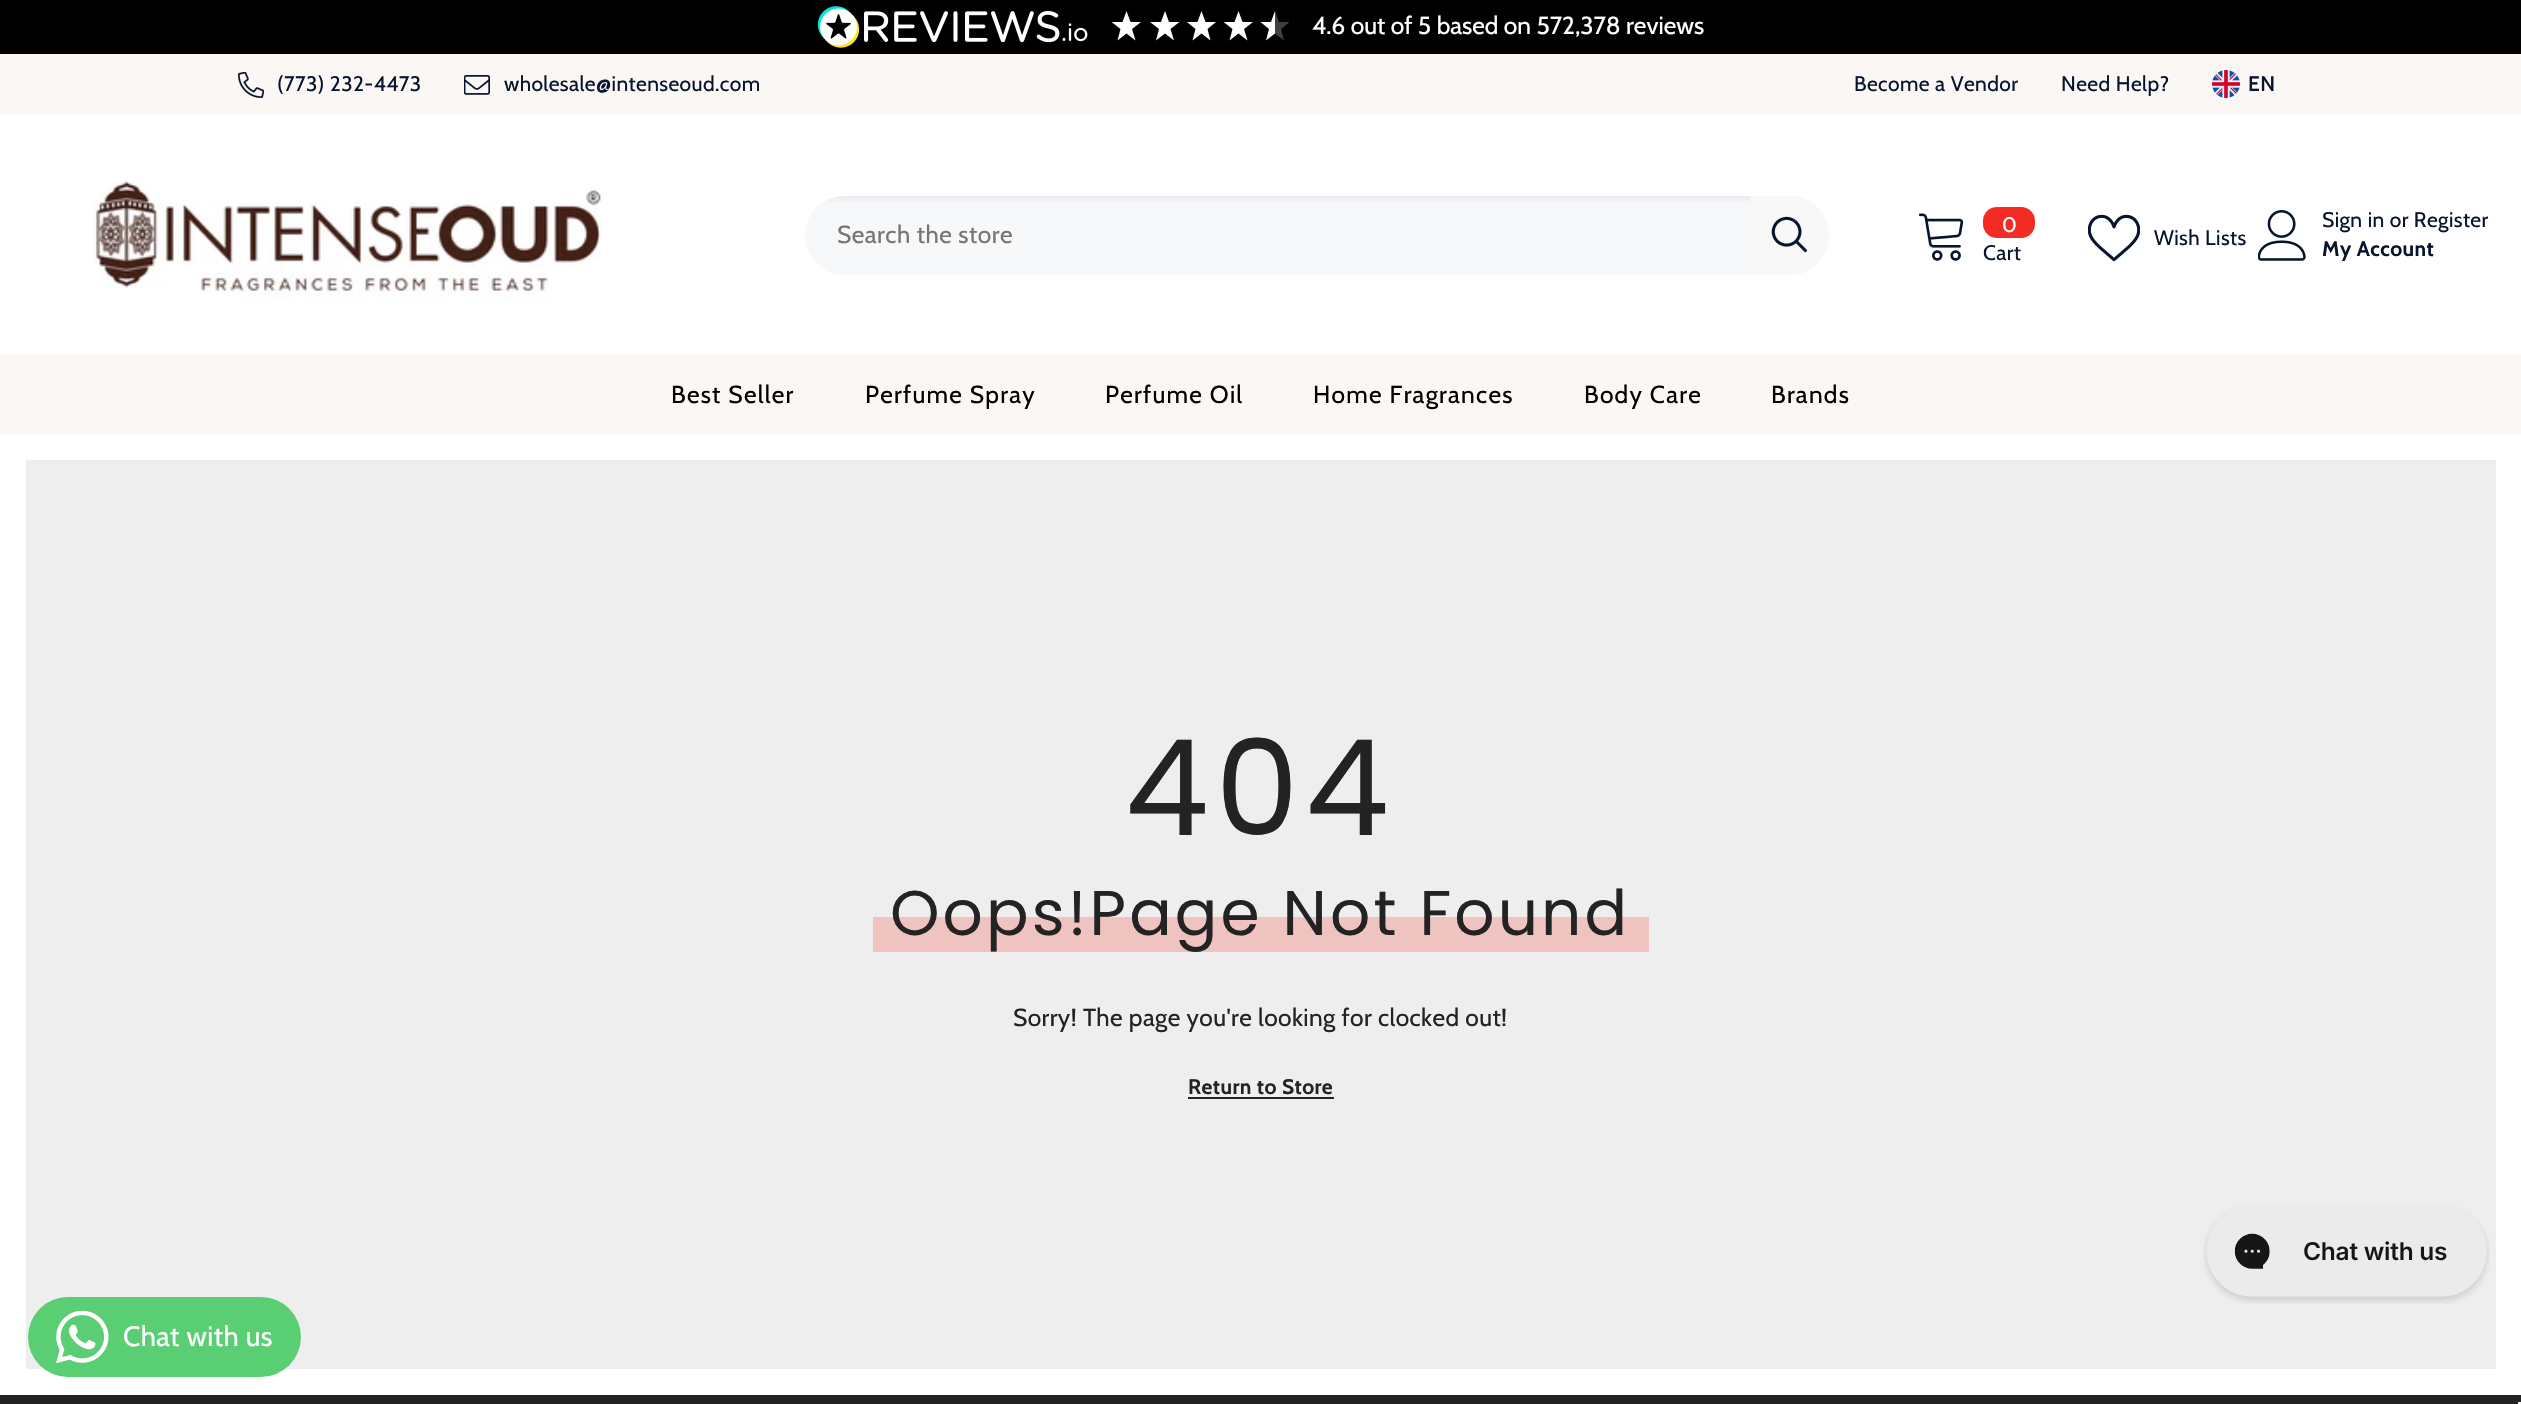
void draw(SkCanvas* canvas) {
	SkPaint fill;
	fill.setAntiAlias(true);
	auto makeFont = [&](const char* family, int weight, float size, bool italic = false) {
		SkFontStyle style(weight, SkFontStyle::kNormal_Width,
			italic ? SkFontStyle::kItalic_Slant : SkFontStyle::kUpright_Slant);
		SkFont result(fontMgr->matchFamilyStyle(family, style), size);
		result.setSubpixel(true);
		return result;
	};
	auto text = [&](const char* s, float x, float y, const SkFont& font) {
		canvas->drawString(s, x, y, font, fill);
	};
	auto spacedText = [&](const char* s, float x, float y, const SkFont& font, const SkPaint& ink, float letter, float word) {
		std::vector<SkGlyphID> glyphs(font.countText(s, strlen(s), SkTextEncoding::kUTF8));
		std::vector<float> xs(glyphs.size());
		font.textToGlyphs(s, strlen(s), SkTextEncoding::kUTF8, glyphs);
		font.getXPos(glyphs, xs, x);
		float extra = 0;
		for (size_t i = 0; i < glyphs.size(); i++) {
			xs[i] += extra;
			extra += letter + word * (glyphs[i] == font.unicharToGlyph(' '));
		}
		canvas->drawTextBlob(SkTextBlob::MakeFromPosHGlyphs(glyphs, xs, y, font), 0, 0, ink);
	};
	auto box = [&](float l, float t, float r, float b) {
		canvas->drawRect(SkRect::MakeLTRB(l, t, r, b), fill);
	};
	auto roundBox = [&](float l, float t, float r, float b, float radius) {
		canvas->drawRoundRect(SkRect::MakeLTRB(l, t, r, b), radius, radius, fill);
	};
	auto picture = [&](const char* path, float l, float t, float r, float b) {
		auto image = SkImages::DeferredFromEncodedData(SkData::MakeFromFileName(path));
		canvas->drawImageRect(image, SkRect::MakeLTRB(l, t, r, b), SkSamplingOptions());
	};
	canvas->clear(0xFFFFFFFF);
	fill.setColor(0xFF000000);
	box(0, 0, 2521, 54);
	picture("image0.png", 817, 6, 1088, 48);
	fill.setColor(0xFFFFFFFF);
	canvas->drawPath(SkPathBuilder().moveTo(1126.5f, 11).lineTo(1122.5f, 22).lineTo(1111.5f, 22).lineTo(1120.5f, 29).lineTo(1117.5f, 40.5f).lineTo(1126.5f, 33.5f).lineTo(1135.5f, 40.5f).lineTo(1132, 29).lineTo(1141, 22).lineTo(1130.5f, 22).close().detach(), fill);
	canvas->drawPath(SkPathBuilder().moveTo(1165, 11).lineTo(1161, 22).lineTo(1150, 22).lineTo(1159, 29).lineTo(1156, 40.5f).lineTo(1165, 33.5f).lineTo(1174, 40.5f).lineTo(1170.5f, 29).lineTo(1179.5f, 22).lineTo(1169, 22).close().detach(), fill);
	canvas->drawPath(SkPathBuilder().moveTo(1201.5f, 11).lineTo(1197.5f, 22).lineTo(1187, 22).lineTo(1195.5f, 29).lineTo(1192.5f, 40.5f).lineTo(1201.5f, 33.5f).lineTo(1210.5f, 40.5f).lineTo(1207.5f, 29).lineTo(1216, 22).lineTo(1205.5f, 22).close().detach(), fill);
	canvas->drawPath(SkPathBuilder().moveTo(1238.5f, 11).lineTo(1234.5f, 22).lineTo(1223.5f, 22).lineTo(1232.5f, 29).lineTo(1229.5f, 40.5f).lineTo(1238.5f, 33.5f).lineTo(1247.5f, 40.5f).lineTo(1244, 29).lineTo(1253, 22).lineTo(1242.5f, 22).close().detach(), fill);
	{
		const SkColor colors[] = {0xFFFFFFFF, 0xFF404040};
		const float stops[] = {0.5f, 0.5f};
		const SkPoint ends[] = {{1257, 25}, {1294, 25}};
		fill.setShader(SkGradientShader::MakeLinear(ends, colors, stops, 2, SkTileMode::kClamp));
		fill.setAlpha(255);
	}
	canvas->drawPath(SkPathBuilder().moveTo(1275, 11).lineTo(1271, 22).lineTo(1260.5f, 22).lineTo(1269, 29).lineTo(1266, 40.5f).lineTo(1275, 33.5f).lineTo(1284, 40.5f).lineTo(1281, 29).lineTo(1289.5f, 22).lineTo(1279, 22).close().detach(), fill);
	fill.setShader(nullptr);
	fill.setColor(0xFFFBF7F5);
	box(0, 54, 2521, 114);
	picture("image1.png", 238, 72, 264, 98);
	picture("image2.png", 464, 75, 490, 95);
	picture("image3.png", 2212, 70, 2240, 98);
	picture("image4.png", 93, 181, 602, 301);
	{
		const SkColor colors[] = {0xFFE9EBEE, 0xFFF7F8FA, 0xFFF7F8FA};
		const float stops[] = {0, 0.1f, 1};
		const SkPoint ends[] = {{1317, 196}, {1317, 275}};
		fill.setShader(SkGradientShader::MakeLinear(ends, colors, stops, 3, SkTileMode::kClamp));
		fill.setAlpha(255);
	}
	roundBox(805, 196, 1829, 275, 39.5f);
	fill.setShader(nullptr);
	fill.setColor(0xFFF8F8F8);
	canvas->drawPath(SkPathBuilder().moveTo(1750, 196).lineTo(1789.5f, 196).cubicTo(1811.5f, 196, 1829, 213.5f, 1829, 235.5f).cubicTo(1829, 257.5f, 1811.5f, 275, 1789.5f, 275).lineTo(1750, 275).close().detach(), fill);
	picture("image5.png", 1771, 216, 1807, 253);
	picture("image6.png", 1918, 213, 1964, 261);
	fill.setColor(0xFFF42B23);
	roundBox(1983, 207, 2035, 238, 14);
	picture("image7.png", 2088, 214, 2140, 262);
	picture("image8.png", 2258, 210, 2306, 261);
	fill.setColor(0xFFFBF7F5);
	box(0, 355, 2521, 434);
	fill.setColor(0xFFEEEEEE);
	box(26, 460, 2496, 1369);
	fill.setColor(0xFFEFC3C0);
	box(873, 917, 1649, 952);
	fill.setColor(0xFF232323);
	box(1188, 1097, 1334, 1099);
	box(0, 1395, 2521, 1404);
	picture("image9.png", 2203, 1205, 2490, 1304);
	fill.setColor(0xFF59CE72);
	roundBox(28, 1297, 301, 1377, 40);
	picture("image10.png", 56, 1311, 109, 1363);
	fill.setColor(0xFFF5F5F5);
	box(2518, 1402, 2521, 1404);
	auto font1 = makeFont("Cabin", 400, 24.5f);
	fill.setColor(0xFFFFFFFF);
	text("4.6 out of 5 based on 572,378 reviews", 1312, 34, font1);
	auto font2 = makeFont("Cabin", 400, 21);
	fill.setColor(0xFF06142E);
	spacedText("(773) 232-4473", 277, 91, font2, fill, 0.4f, 0);
	spacedText("wholesale@intenseoud.com", 504, 91, font2, fill, 0.4f, 0);
	spacedText("Become a Vendor", 1854, 91, font2, fill, 0.4f, 0);
	spacedText("Need Help?", 2061, 91, font2, fill, 0.4f, 0);
	auto font3 = makeFont("Cabin", 500, 21);
	spacedText("EN", 2248, 91, font3, fill, 0.4f, 0);
	fill.setColor(0xFF767676);
	spacedText("Search the store", 837, 243, font1, fill, 0.5f, 0);
	fill.setColor(0xFFFFFFFF);
	text("0", 2002, 232, font2);
	fill.setColor(0xFF06142E);
	spacedText("Cart", 1983, 260, font2, fill, 0.4f, 0);
	spacedText("Wish Lists", 2154, 245, font2, fill, 0.4f, 0);
	spacedText("Sign in or Register", 2322, 227, font2, fill, 0.4f, 0);
	auto font4 = makeFont("Cabin", 700, 21);
	spacedText("My Account", 2322, 256, font4, fill, 0.4f, 0);
	fill.setColor(0xFF000000);
	spacedText("Best Seller", 671, 403, font1, fill, 1.25f, 0);
	spacedText("Perfume Spray", 865, 403, font1, fill, 1.25f, 0);
	spacedText("Perfume Oil", 1105, 403, font1, fill, 1.25f, 0);
	spacedText("Home Fragrances", 1313, 403, font1, fill, 1.25f, 0);
	spacedText("Body Care", 1584, 403, font1, fill, 1.25f, 0);
	spacedText("Brands", 1771, 403, font1, fill, 1.25f, 0);
	auto font5 = makeFont("Poppins", 400, 133);
	fill.setColor(0xFF232323);
	spacedText("404", 1125, 835, font5, fill, 6.5f, 0);
	auto font6 = makeFont("Poppins", 400, 63);
	spacedText("Oops!Page Not Found", 890, 935, font6, fill, 3.1f, 0);
	spacedText("Sorry! The page you're looking for clocked out!", 1013, 1026, font1, fill, 0.4f, 0);
	spacedText("Return to Store", 1188, 1094, font4, fill, 0.4f, 0);
	auto font7 = makeFont("Cabin", 400, 28);
	fill.setColor(0xFFFFFFFF);
	spacedText("Chat with us", 123, 1346, font7, fill, 0.4f, 0);
}
